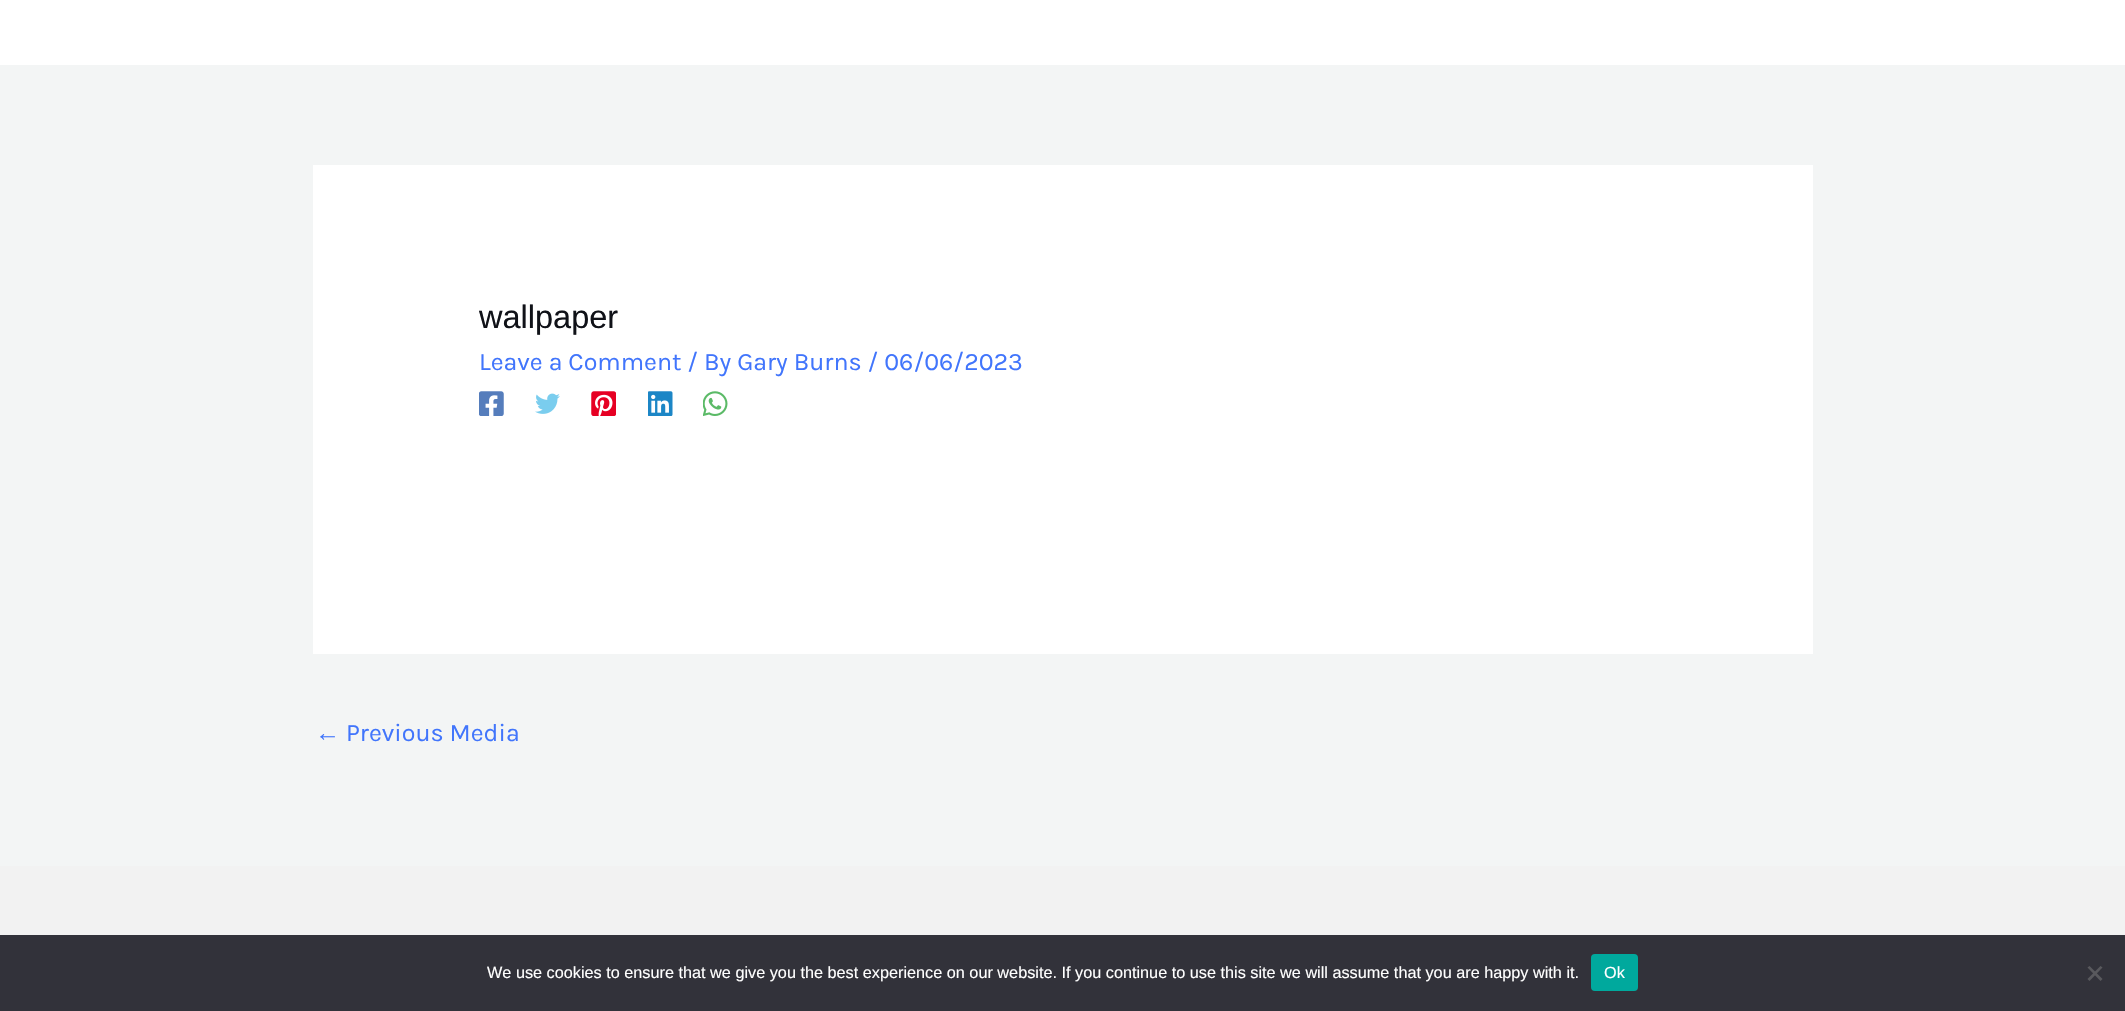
void draw(SkCanvas* canvas) {
	SkPaint fill;
	fill.setAntiAlias(true);
	auto makeFont = [&](const char* family, int weight, float size, bool italic = false) {
		SkFontStyle style(weight, SkFontStyle::kNormal_Width,
			italic ? SkFontStyle::kItalic_Slant : SkFontStyle::kUpright_Slant);
		SkFont result(fontMgr->matchFamilyStyle(family, style), size);
		result.setSubpixel(true);
		return result;
	};
	auto text = [&](const char* s, float x, float y, const SkFont& font) {
		canvas->drawString(s, x, y, font, fill);
	};
	auto box = [&](float l, float t, float r, float b) {
		canvas->drawRect(SkRect::MakeLTRB(l, t, r, b), fill);
	};
	auto roundBox = [&](float l, float t, float r, float b, float radius) {
		canvas->drawRoundRect(SkRect::MakeLTRB(l, t, r, b), radius, radius, fill);
	};
	auto picture = [&](const char* path, float l, float t, float r, float b) {
		auto image = SkImages::DeferredFromEncodedData(SkData::MakeFromFileName(path));
		canvas->drawImageRect(image, SkRect::MakeLTRB(l, t, r, b), SkSamplingOptions());
	};
	canvas->clear(0xFFF3F5F5);
	fill.setColor(0xFFFFFFFF);
	box(0, 0, 2125, 65);
	box(313, 165, 1813, 654);
	picture("image0.png", 479, 391, 504, 416);
	picture("image1.png", 535, 393, 560, 414);
	picture("image2.png", 591, 391, 616, 416);
	picture("image3.png", 648, 391, 673, 416);
	picture("image4.png", 703, 391, 728, 416);
	fill.setColor(0xFFF2F2F2);
	box(0, 866, 2125, 935);
	fill.setColor(0xFF32323A);
	box(0, 935, 2125, 1011);
	fill.setColor(0xFF00A99D);
	roundBox(1591, 954, 1638, 991, 4);
	fill.setColor(0xFF59595D);
	canvas->drawPath(SkPathBuilder().moveTo(2100.5f, 966).lineTo(2102.5f, 967.5f).lineTo(2089.5f, 981).lineTo(2087.5f, 979).close().detach(), fill);
	canvas->drawPath(SkPathBuilder().moveTo(2087.5f, 967.5f).lineTo(2089.5f, 966).lineTo(2102.5f, 979).lineTo(2100.5f, 981).close().detach(), fill);
	auto font1 = makeFont("Liberation Sans", 400, 32.5f);
	fill.setColor(0xFF101218);
	text("wallpaper", 479, 328, font1);
	auto font2 = makeFont("Karla", 400, 25);
	fill.setColor(0xFF4175FC);
	text("Leave a Comment / By Gary Burns / 06/06/2023", 479, 370, font2);
	auto font3 = makeFont("Liberation Sans", 400, 25);
	text("←", 315, 741, font3);
	text("Previous Media", 346, 741, font2);
	auto font4 = makeFont("Liberation Sans", 400, 16.25f);
	fill.setColor(0xFFFFFFFF);
	text("We use cookies to ensure that we give you the best experience on our website. If you continue to use this site we will assume that you are happy with it.", 487, 978, font4);
	text("Ok", 1604, 978, font4);
}
